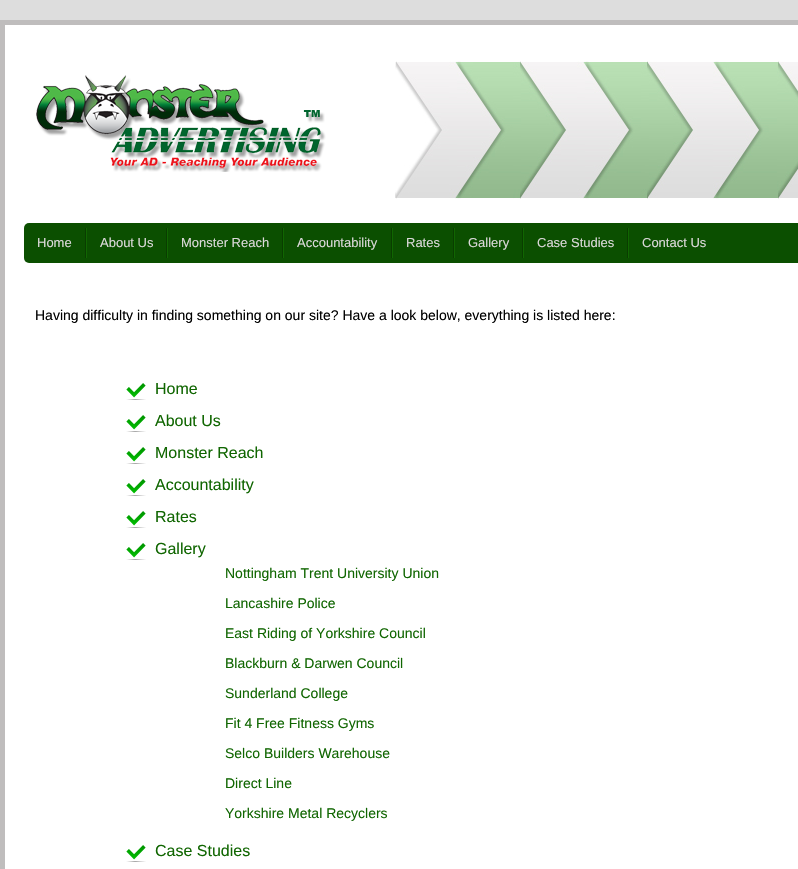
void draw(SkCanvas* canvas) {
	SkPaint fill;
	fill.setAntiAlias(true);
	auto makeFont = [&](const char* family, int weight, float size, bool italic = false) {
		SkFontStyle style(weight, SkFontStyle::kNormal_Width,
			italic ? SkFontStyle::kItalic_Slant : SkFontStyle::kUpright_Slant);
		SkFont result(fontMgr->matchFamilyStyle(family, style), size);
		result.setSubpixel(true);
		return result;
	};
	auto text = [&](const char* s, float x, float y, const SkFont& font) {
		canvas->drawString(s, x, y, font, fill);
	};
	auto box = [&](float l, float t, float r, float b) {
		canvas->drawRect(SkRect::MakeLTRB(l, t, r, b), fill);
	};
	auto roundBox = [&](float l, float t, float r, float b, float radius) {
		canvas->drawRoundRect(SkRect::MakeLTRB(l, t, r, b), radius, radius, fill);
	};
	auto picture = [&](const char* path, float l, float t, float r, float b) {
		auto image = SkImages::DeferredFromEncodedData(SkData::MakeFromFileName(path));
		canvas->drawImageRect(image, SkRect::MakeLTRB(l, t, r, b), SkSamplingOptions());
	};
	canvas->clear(0xFFDDDDDD);
	fill.setColor(0xFFFFFFFF);
	canvas->drawRect(SkRect::MakeLTRB(2.5f, 22.5f, 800.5f, 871.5f), fill);
	fill.setStyle(SkPaint::kStroke_Style);
	fill.setStrokeWidth(5);
	fill.setColor(0xFFBFBDBD);
	canvas->drawRect(SkRect::MakeLTRB(2.5f, 22.5f, 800.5f, 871.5f), fill);
	picture("image0.png", 36, 75, 326, 172);
	picture("image1.png", 395, 61, 798, 199);
	fill.setStyle(SkPaint::kFill_Style);
	fill.setColor(0xFF0B4F00);
	roundBox(24, 223, 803, 263, 5);
	fill.setColor(0xFF093D00);
	box(85, 228, 86, 258);
	box(166, 228, 167, 258);
	fill.setColor(0xFF106601);
	box(86, 228, 87, 258);
	fill.setColor(0xFF093D00);
	box(282, 228, 283, 258);
	fill.setColor(0xFF106601);
	box(167, 228, 168, 258);
	fill.setColor(0xFF093D00);
	box(391, 228, 392, 258);
	fill.setColor(0xFF106601);
	box(283, 228, 284, 258);
	fill.setColor(0xFF093D00);
	box(453, 228, 454, 258);
	fill.setColor(0xFF106601);
	box(392, 228, 393, 258);
	fill.setColor(0xFF093D00);
	box(522, 228, 523, 258);
	fill.setColor(0xFF106601);
	box(454, 228, 455, 258);
	fill.setColor(0xFF093D00);
	box(627, 228, 628, 258);
	fill.setColor(0xFF106601);
	box(523, 228, 524, 258);
	box(628, 228, 629, 258);
	picture("image2.png", 126, 383, 146, 400);
	picture("image2.png", 126, 415, 146, 432);
	picture("image2.png", 126, 447, 146, 464);
	picture("image2.png", 126, 479, 146, 496);
	picture("image2.png", 126, 511, 146, 528);
	picture("image2.png", 126, 543, 146, 560);
	picture("image2.png", 126, 845, 146, 862);
	auto font1 = makeFont("Liberation Sans", 400, 13);
	fill.setColor(0xFFDCD9DA);
	text("Home", 37, 247, font1);
	text("About Us", 100, 247, font1);
	text("Monster Reach", 181, 247, font1);
	text("Accountability", 297, 247, font1);
	text("Rates", 406, 247, font1);
	text("Gallery", 468, 247, font1);
	text("Case Studies", 537, 247, font1);
	text("Contact Us", 642, 247, font1);
	auto font2 = makeFont("Liberation Sans", 400, 14);
	fill.setColor(0xFF000000);
	text("Having difficulty in finding something on our site? Have a look below, everything is listed here:", 35, 320, font2);
	auto font3 = makeFont("Liberation Sans", 400, 16);
	fill.setColor(0xFF106601);
	text("Home", 155, 394, font3);
	text("About Us", 155, 426, font3);
	text("Monster Reach", 155, 458, font3);
	text("Accountability", 155, 490, font3);
	text("Rates", 155, 522, font3);
	text("Gallery", 155, 554, font3);
	text("Nottingham Trent University Union", 225, 578, font2);
	text("Lancashire Police", 225, 608, font2);
	text("East Riding of Yorkshire Council", 225, 638, font2);
	text("Blackburn & Darwen Council", 225, 668, font2);
	text("Sunderland College", 225, 698, font2);
	text("Fit 4 Free Fitness Gyms", 225, 728, font2);
	text("Selco Builders Warehouse", 225, 758, font2);
	text("Direct Line", 225, 788, font2);
	text("Yorkshire Metal Recyclers", 225, 818, font2);
	text("Case Studies", 155, 856, font3);
}
